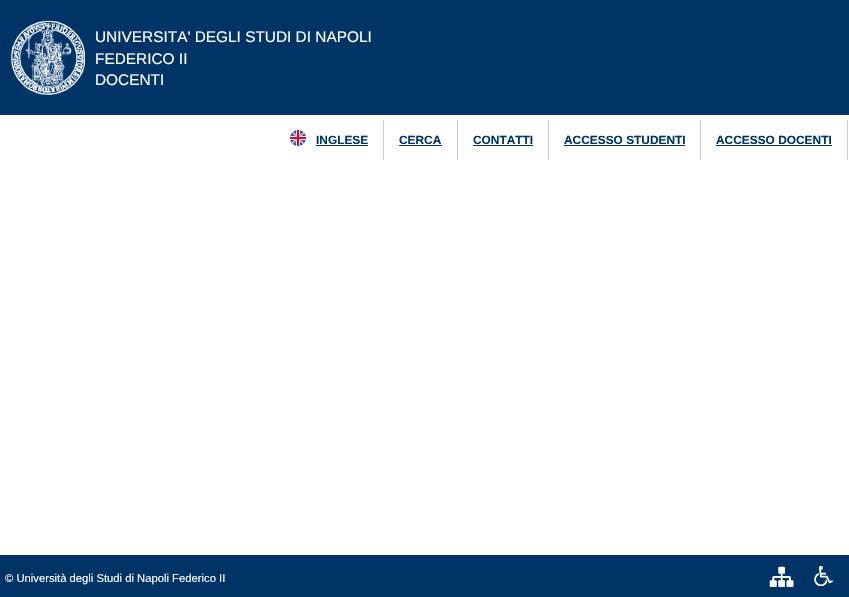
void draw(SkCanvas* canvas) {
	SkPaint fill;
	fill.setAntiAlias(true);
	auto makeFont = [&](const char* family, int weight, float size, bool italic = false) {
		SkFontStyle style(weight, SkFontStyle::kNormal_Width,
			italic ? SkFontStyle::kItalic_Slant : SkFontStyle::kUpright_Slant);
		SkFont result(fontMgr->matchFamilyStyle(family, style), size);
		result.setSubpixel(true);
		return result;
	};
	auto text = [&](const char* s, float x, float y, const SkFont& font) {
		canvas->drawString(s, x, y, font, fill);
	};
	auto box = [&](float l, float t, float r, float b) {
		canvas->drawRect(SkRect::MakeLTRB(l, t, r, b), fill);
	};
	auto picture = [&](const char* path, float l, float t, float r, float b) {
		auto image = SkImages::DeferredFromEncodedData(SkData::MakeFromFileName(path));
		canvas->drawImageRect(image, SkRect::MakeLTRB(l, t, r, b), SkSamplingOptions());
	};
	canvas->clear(0xFFFFFFFF);
	fill.setColor(0xFF003366);
	box(0, 0, 849, 115);
	picture("image0.png", 10, 20, 85, 95);
	fill.setColor(0xFFCCCCCC);
	box(383, 120, 384, 160);
	picture("image1.png", 290, 130, 306, 146);
	fill.setColor(0xFF003366);
	box(316, 145, 368, 146);
	fill.setColor(0xFFCCCCCC);
	box(457, 120, 458, 160);
	fill.setColor(0xFF003366);
	box(399, 145, 442, 146);
	fill.setColor(0xFFCCCCCC);
	box(548, 120, 549, 160);
	fill.setColor(0xFF003366);
	box(473, 145, 533, 146);
	fill.setColor(0xFFCCCCCC);
	box(700, 120, 701, 160);
	fill.setColor(0xFF003366);
	box(564, 145, 685, 146);
	fill.setColor(0xFFCCCCCC);
	box(847, 120, 848, 160);
	fill.setColor(0xFF003366);
	box(716, 145, 832, 146);
	box(0, 555, 849, 597);
	picture("image2.png", 769, 566, 794, 587);
	picture("image3.png", 814, 566, 833, 586);
	auto font1 = makeFont("Liberation Sans", 400, 15.4f);
	fill.setColor(0xFFFFFFFF);
	text("UNIVERSITA' DEGLI STUDI DI NAPOLI", 95, 42, font1);
	text("FEDERICO II", 95, 64, font1);
	text("DOCENTI", 95, 85, font1);
	auto font2 = makeFont("Liberation Sans", 700, 11.9f);
	fill.setColor(0xFF003366);
	text("INGLESE", 316, 144, font2);
	text("CERCA", 399, 144, font2);
	text("CONTATTI", 473, 144, font2);
	text("ACCESSO STUDENTI", 564, 144, font2);
	text("ACCESSO DOCENTI", 716, 144, font2);
	auto font3 = makeFont("Liberation Sans", 400, 11.25f);
	fill.setColor(0xFFFFFFFF);
	text("© Università degli Studi di Napoli Federico II", 5, 582, font3);
}
